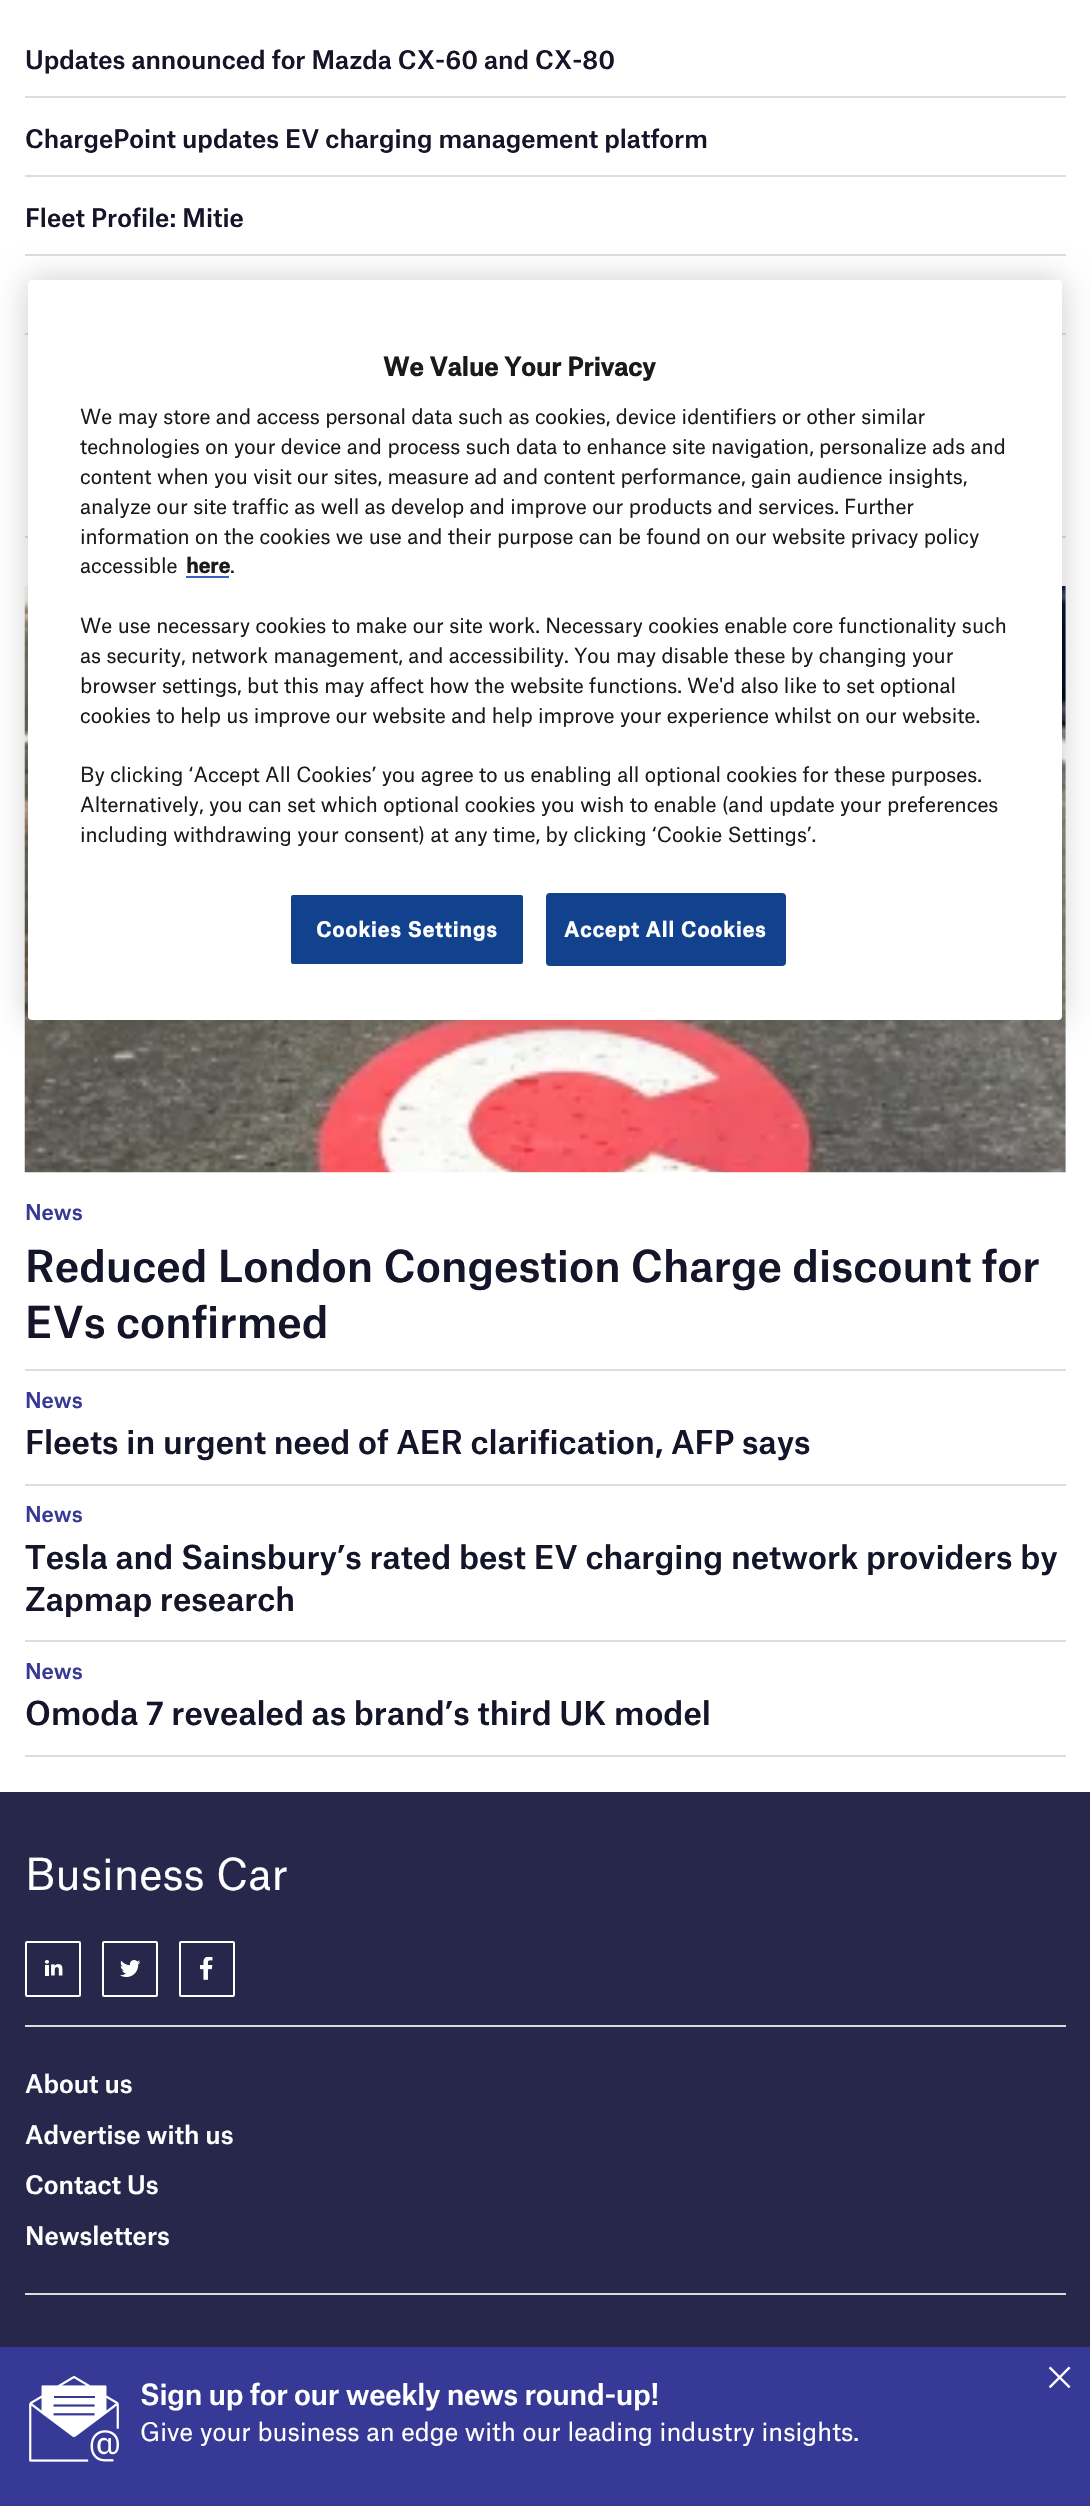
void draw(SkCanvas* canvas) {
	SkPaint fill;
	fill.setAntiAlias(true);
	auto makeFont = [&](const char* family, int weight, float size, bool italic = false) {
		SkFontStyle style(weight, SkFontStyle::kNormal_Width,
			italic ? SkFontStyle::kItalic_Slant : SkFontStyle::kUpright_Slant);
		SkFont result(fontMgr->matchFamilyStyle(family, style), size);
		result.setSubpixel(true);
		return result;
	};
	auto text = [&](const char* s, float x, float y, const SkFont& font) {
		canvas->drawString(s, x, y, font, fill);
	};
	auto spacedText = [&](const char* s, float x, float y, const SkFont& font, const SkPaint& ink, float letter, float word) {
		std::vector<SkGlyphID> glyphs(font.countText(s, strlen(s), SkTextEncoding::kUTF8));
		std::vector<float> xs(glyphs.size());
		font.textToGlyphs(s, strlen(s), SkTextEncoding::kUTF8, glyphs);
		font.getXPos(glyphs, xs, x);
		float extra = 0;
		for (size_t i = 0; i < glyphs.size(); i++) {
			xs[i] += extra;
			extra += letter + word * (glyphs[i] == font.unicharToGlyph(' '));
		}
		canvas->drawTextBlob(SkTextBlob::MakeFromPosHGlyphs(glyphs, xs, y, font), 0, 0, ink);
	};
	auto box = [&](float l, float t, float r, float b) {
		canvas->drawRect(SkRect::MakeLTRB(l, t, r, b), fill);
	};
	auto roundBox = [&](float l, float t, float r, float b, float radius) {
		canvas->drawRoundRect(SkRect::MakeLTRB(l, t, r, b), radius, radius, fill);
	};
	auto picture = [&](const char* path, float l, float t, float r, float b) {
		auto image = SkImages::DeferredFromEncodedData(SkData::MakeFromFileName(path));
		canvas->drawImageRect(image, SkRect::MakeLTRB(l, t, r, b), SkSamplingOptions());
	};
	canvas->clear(0xFFFFFFFF);
	fill.setColor(0xFFDDDDDD);
	box(25, 96, 1066, 98);
	box(25, 175, 1066, 177);
	box(25, 254, 1066, 256);
	box(25, 333, 1066, 335);
	box(25, 536, 1066, 538);
	box(25, 1369, 1066, 1371);
	picture("image0.png", 24, 586, 1066, 1173);
	box(25, 1484, 1066, 1486);
	box(25, 1640, 1066, 1642);
	box(25, 1755, 1066, 1757);
	fill.setColor(0x33000000);
	fill.setMaskFilter(SkMaskFilter::MakeBlur(kNormal_SkBlurStyle, 16));
	canvas->drawRoundRect(SkRect::MakeLTRB(28, 280, 1062, 1020), 4, 4, fill);
	fill.setMaskFilter(nullptr);
	fill.setColor(0xFFFFFFFF);
	roundBox(28, 280, 1062, 1020, 4);
	fill.setColor(0xFF3860BE);
	box(186, 576, 229, 578);
	fill.setColor(0xFF12418D);
	canvas->drawRoundRect(SkRect::MakeLTRB(290, 894, 524, 965), 3, 3, fill);
	fill.setStyle(SkPaint::kStroke_Style);
	fill.setStrokeWidth(2);
	fill.setColor(0xFFFFFFFF);
	canvas->drawRoundRect(SkRect::MakeLTRB(290, 894, 524, 965), 3, 3, fill);
	fill.setStyle(SkPaint::kFill_Style);
	fill.setColor(0xFF12418D);
	canvas->drawRoundRect(SkRect::MakeLTRB(547, 894, 785, 965), 3, 3, fill);
	fill.setStyle(SkPaint::kStroke_Style);
	canvas->drawRoundRect(SkRect::MakeLTRB(547, 894, 785, 965), 3, 3, fill);
	fill.setStyle(SkPaint::kFill_Style);
	fill.setColor(0xFF27274C);
	box(0, 1792, 1090, 2347);
	fill.setStyle(SkPaint::kStroke_Style);
	fill.setColor(0xFFFFFFFF);
	canvas->drawRoundRect(SkRect::MakeLTRB(26, 1942, 80, 1996), 1, 1, fill);
	picture("image1.png", 44, 1960, 63, 1976);
	canvas->drawRoundRect(SkRect::MakeLTRB(103, 1942, 157, 1996), 1, 1, fill);
	picture("image2.png", 120, 1960, 141, 1977);
	canvas->drawRoundRect(SkRect::MakeLTRB(180, 1942, 234, 1996), 1, 1, fill);
	picture("image3.png", 200, 1957, 213, 1980);
	fill.setStyle(SkPaint::kFill_Style);
	fill.setColor(0xFFDBDBDB);
	box(25, 2025, 1066, 2027);
	box(25, 2293, 1066, 2295);
	fill.setColor(0xFF373997);
	box(0, 2347, 1090, 2506);
	picture("image4.png", 1048, 2366, 1071, 2389);
	picture("image5.png", 29, 2375, 119, 2462);
	auto font1 = makeFont("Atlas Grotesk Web", 500, 24.5f);
	fill.setColor(0xFF151529);
	text("Updates announced for Mazda CX-60 and CX-80", 25, 69, font1);
	text("ChargePoint updates EV charging management platform", 25, 148, font1);
	text("Fleet Profile: Mitie", 25, 227, font1);
	auto font2 = makeFont("Atlas Grotesk Web", 500, 21);
	fill.setColor(0xFF373997);
	text("News", 25, 1220, font2);
	auto font3 = makeFont("Atlas Grotesk Web", 500, 42);
	fill.setColor(0xFF151529);
	text("Reduced London Congestion Charge discount for", 25, 1282, font3);
	text("EVs confirmed", 25, 1338, font3);
	fill.setColor(0xFF373997);
	text("News", 25, 1408, font2);
	auto font4 = makeFont("Atlas Grotesk Web", 500, 31.5f);
	fill.setColor(0xFF151529);
	text("Fleets in urgent need of AER clarification, AFP says", 25, 1454, font4);
	fill.setColor(0xFF373997);
	text("News", 25, 1522, font2);
	fill.setColor(0xFF151529);
	text("Tesla and Sainsbury’s rated best EV charging network providers by", 25, 1569, font4);
	text("Zapmap research", 25, 1611, font4);
	fill.setColor(0xFF373997);
	text("News", 25, 1679, font2);
	fill.setColor(0xFF151529);
	text("Omoda 7 revealed as brand’s third UK model", 25, 1725, font4);
	auto font5 = makeFont("Atlas Grotesk Web", 700, 24.5f);
	fill.setColor(0xFF1A1A1A);
	text("We Value Your Privacy", 383, 376, font5);
	auto font6 = makeFont("Atlas Grotesk Web", 400, 19.9f);
	text("We may store and access personal data such as cookies, device identifiers or other similar", 80, 424, font6);
	text("technologies on your device and process such data to enhance site navigation,", 80, 454, font6);
	text("personalize ads and", 819, 454, font6);
	text("content when you visit our sites, measure ad and content performance, gain audience insights,", 80, 484, font6);
	text("analyze our site traffic as well as develop and improve our products and services.", 80, 514, font6);
	text("Further", 844, 514, font6);
	text("information on the cookies we use and their purpose can be found on our website privacy policy", 80, 544, font6);
	text("accessible", 80, 573, font6);
	auto font7 = makeFont("Atlas Grotesk Web", 700, 19.9f);
	text("here", 186, 573, font7);
	text(".", 230, 573, font6);
	text("We use necessary cookies to make our site work. Necessary cookies enable core functionality such", 80, 633, font6);
	text("as security, network management, and accessibility. You may disable these by changing your", 80, 663, font6);
	text("browser settings, but this may affect how the website functions.", 80, 693, font6);
	text("We'd also like to set optional", 687, 693, font6);
	text("cookies to help us improve our website and help improve your experience whilst on our website.", 80, 723, font6);
	text("By clicking ‘Accept All Cookies’ you agree to us enabling all optional cookies for these purposes.", 80, 782, font6);
	text("Alternatively, you can set which optional cookies you wish to enable (and update your preferences", 80, 812, font6);
	text("including withdrawing your consent) at any time, by clicking ‘Cookie Settings’.", 80, 842, font6);
	fill.setColor(0xFFFFFFFF);
	spacedText("Cookies Settings", 316, 937, font7, fill, 1, 0);
	spacedText("Accept All Cookies", 564, 937, font7, fill, 1, 0);
	auto font8 = makeFont("Atlas Grotesk Web", 400, 42);
	text("Business Car", 25, 1890, font8);
	text("About us", 25, 2093, font1);
	text("Advertise with us", 25, 2144, font1);
	text("Contact Us", 25, 2194, font1);
	text("Newsletters", 25, 2245, font1);
	auto font9 = makeFont("Atlas Grotesk Web", 500, 28);
	spacedText("Sign up for our weekly news round-up!", 140, 2405, font9, fill, -0.3f, 0);
	auto font10 = makeFont("Atlas Grotesk Web", 400, 24.5f);
	text("Give your business an edge with our leading industry insights.", 140, 2441, font10);
}
